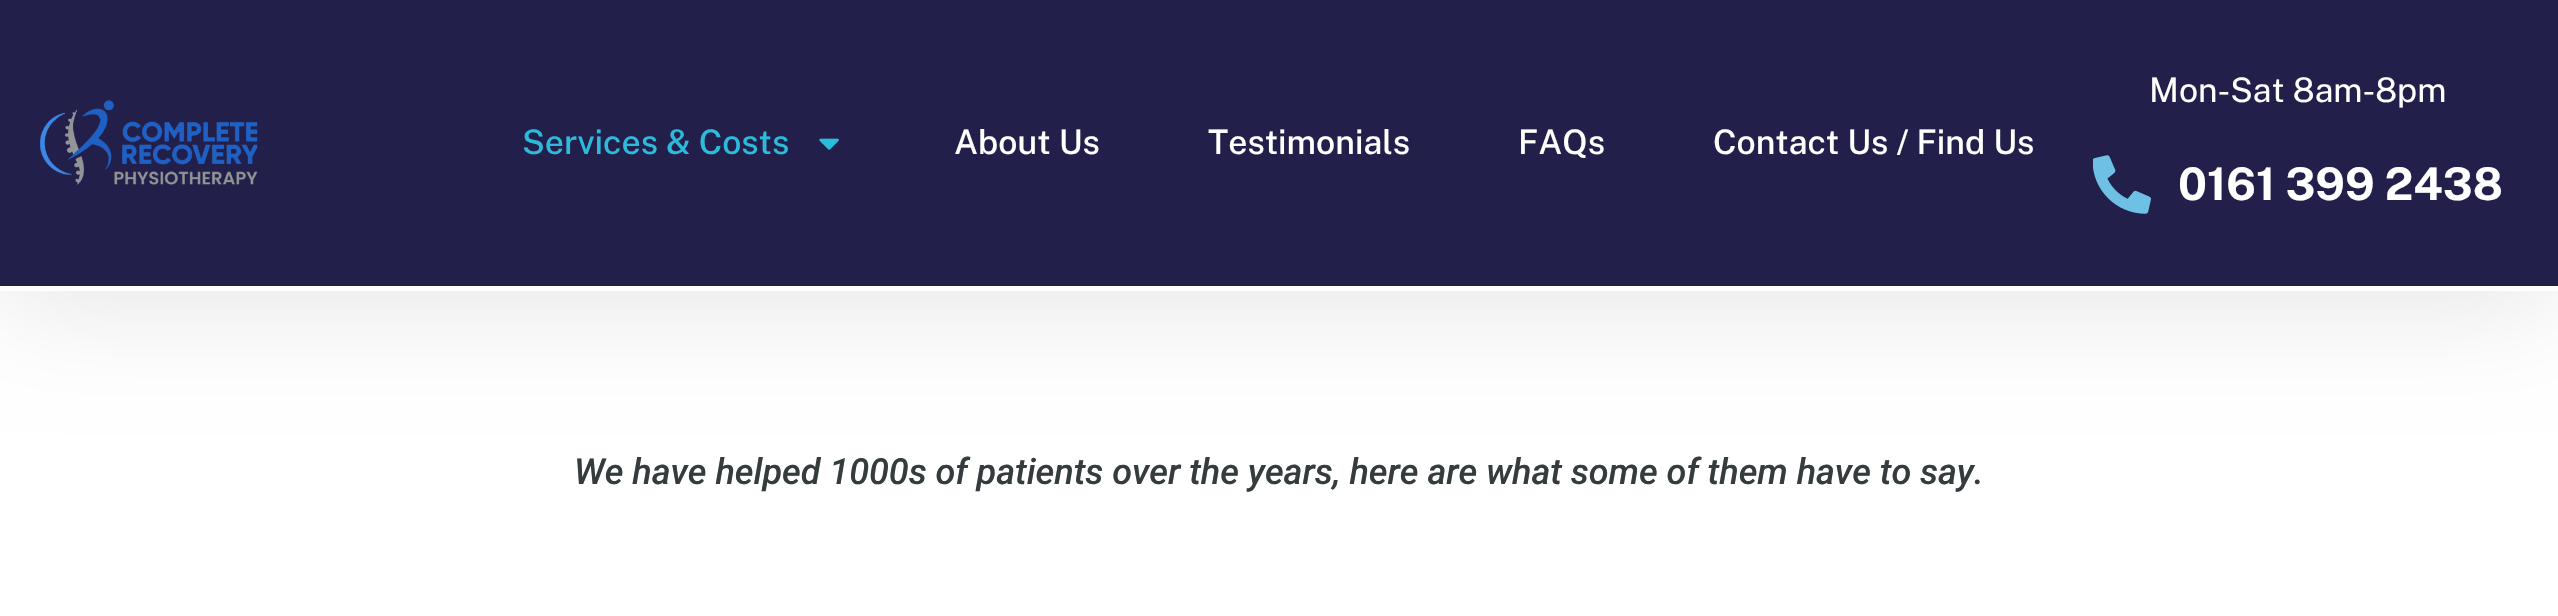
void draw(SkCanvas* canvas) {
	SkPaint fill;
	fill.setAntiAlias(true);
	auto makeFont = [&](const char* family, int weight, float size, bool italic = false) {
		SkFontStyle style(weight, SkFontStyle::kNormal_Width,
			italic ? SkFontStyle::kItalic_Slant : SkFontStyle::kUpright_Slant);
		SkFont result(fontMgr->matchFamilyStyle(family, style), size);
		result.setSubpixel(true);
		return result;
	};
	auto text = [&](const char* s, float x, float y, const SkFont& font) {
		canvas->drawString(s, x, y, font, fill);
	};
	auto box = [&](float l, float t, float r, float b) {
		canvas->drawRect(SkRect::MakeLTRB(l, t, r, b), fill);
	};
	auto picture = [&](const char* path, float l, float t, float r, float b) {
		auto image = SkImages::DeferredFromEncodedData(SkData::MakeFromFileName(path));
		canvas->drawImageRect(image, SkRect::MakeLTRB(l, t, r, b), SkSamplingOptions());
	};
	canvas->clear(0xFFFFFFFF);
	fill.setColor(0x1A000000);
	fill.setMaskFilter(SkMaskFilter::MakeBlur(kNormal_SkBlurStyle, 56));
	canvas->drawRect(SkRect::MakeLTRB(0, 11, 2558, 302), fill);
	fill.setMaskFilter(nullptr);
	fill.setColor(0xFF22204A);
	box(0, 0, 2558, 286);
	fill.setColor(0xFFFFFFFF);
	box(0, 286, 2558, 291);
	picture("image0.png", 40, 100, 258, 185);
	picture("image1.png", 819, 138, 839, 150);
	picture("image2.png", 2093, 155, 2151, 214);
	auto font1 = makeFont("Public Sans", 500, 33.75f);
	fill.setColor(0xFF2CBBDA);
	text("Services & Costs", 522, 154, font1);
	fill.setColor(0xFFFFFFFF);
	text("About Us", 954, 154, font1);
	text("Testimonials", 1208, 154, font1);
	text("FAQs", 1518, 154, font1);
	text("Contact Us / Find Us", 1713, 154, font1);
	auto font2 = makeFont("Public Sans", 400, 33.75f);
	text("Mon-Sat 8am-8pm", 2149, 102, font2);
	auto font3 = makeFont("Public Sans", 700, 45);
	text("0161 399 2438", 2178, 200, font3);
	auto font4 = makeFont("Roboto", 500, 36, true);
	fill.setColor(0xFF353C3D);
	text("We have helped 1000s of patients over the years, here are what some of them have to say.", 574, 484, font4);
}
